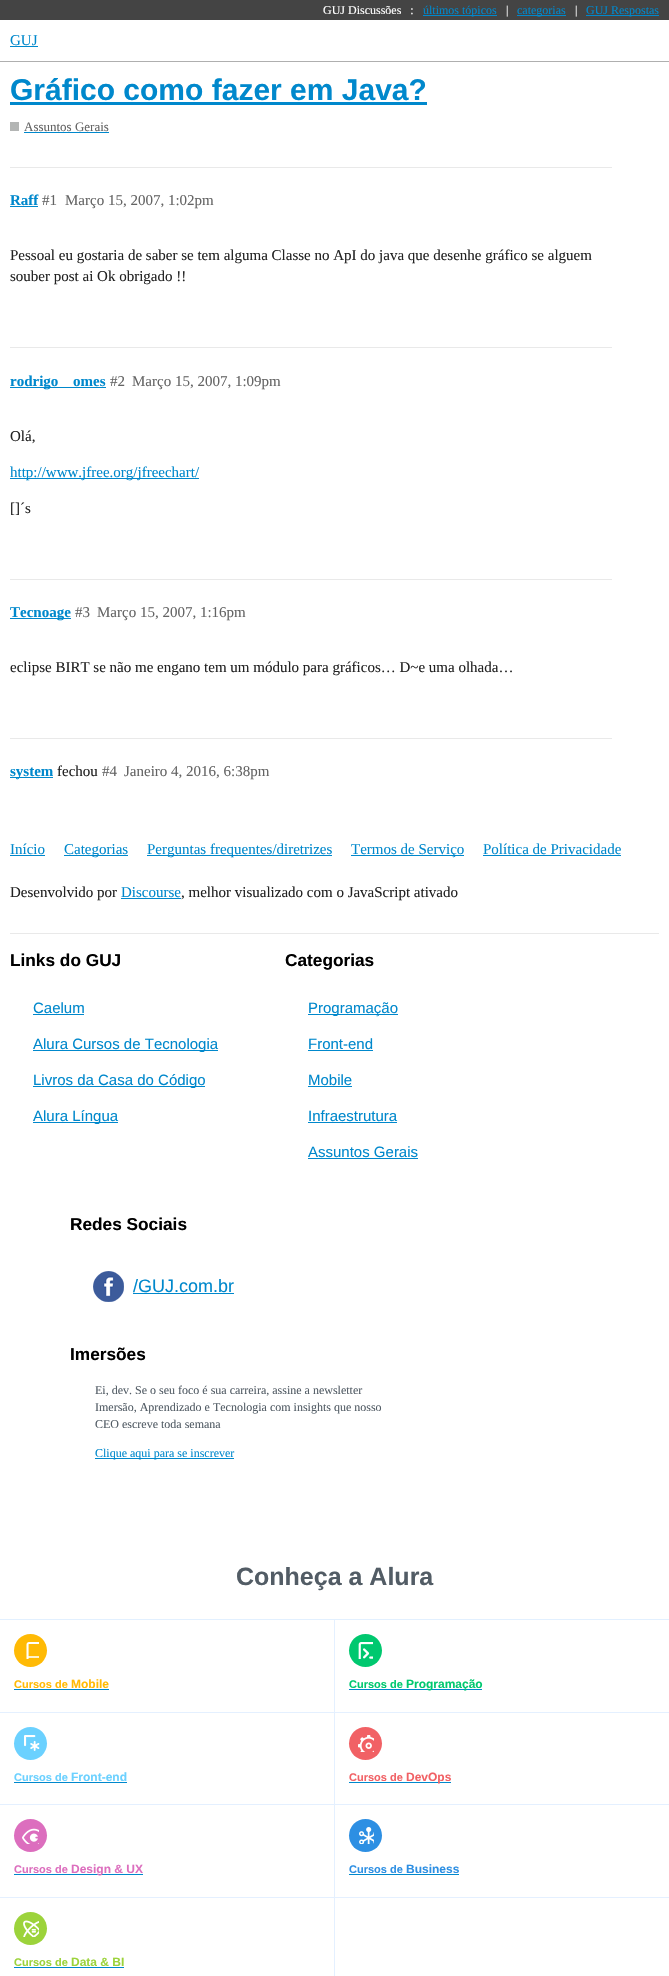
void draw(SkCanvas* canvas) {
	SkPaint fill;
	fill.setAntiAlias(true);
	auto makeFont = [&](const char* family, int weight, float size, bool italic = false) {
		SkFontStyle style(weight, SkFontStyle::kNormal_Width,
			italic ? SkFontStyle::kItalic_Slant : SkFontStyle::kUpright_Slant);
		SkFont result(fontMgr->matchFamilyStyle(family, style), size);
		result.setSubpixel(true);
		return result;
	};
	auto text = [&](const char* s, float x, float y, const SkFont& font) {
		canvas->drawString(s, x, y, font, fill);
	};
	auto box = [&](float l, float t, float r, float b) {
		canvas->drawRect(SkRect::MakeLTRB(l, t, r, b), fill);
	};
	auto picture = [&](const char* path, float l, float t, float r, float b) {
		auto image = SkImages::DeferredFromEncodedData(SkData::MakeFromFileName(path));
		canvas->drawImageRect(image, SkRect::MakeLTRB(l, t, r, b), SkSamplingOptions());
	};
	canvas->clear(0xFFFFFFFF);
	fill.setColor(0xFF444444);
	box(0, 0, 669, 20);
	fill.setColor(0xFF0088CC);
	box(423, 15, 497, 16);
	box(517, 15, 566, 16);
	box(586, 15, 659, 16);
	fill.setColor(0xFFAFAFAF);
	box(0, 61, 669, 62);
	fill.setColor(0xFF0088CC);
	box(10, 46, 38, 47);
	box(10, 102, 427, 105);
	fill.setColor(0xFFB3B5B4);
	box(10, 122, 19, 131);
	fill.setColor(0xFF0088CC);
	box(24, 132, 109, 133);
	fill.setColor(0xFFE9E9E9);
	box(10, 167, 612, 168);
	fill.setColor(0xFF0088CC);
	box(10, 206, 38, 207);
	fill.setColor(0xFFE9E9E9);
	box(10, 347, 612, 348);
	fill.setColor(0xFF0088CC);
	box(10, 387, 106, 388);
	box(10, 478, 199, 479);
	fill.setColor(0xFFE9E9E9);
	box(10, 579, 612, 580);
	fill.setColor(0xFF0088CC);
	box(10, 618, 71, 619);
	fill.setColor(0xFFE9E9E9);
	box(10, 738, 612, 739);
	fill.setColor(0xFF0088CC);
	box(10, 777, 53, 778);
	box(10, 855, 45, 856);
	box(64, 855, 128, 856);
	box(147, 855, 332, 856);
	box(351, 855, 464, 856);
	box(483, 855, 621, 856);
	box(121, 898, 181, 899);
	fill.setColor(0xFFE9E9E9);
	box(10, 933, 659, 934);
	fill.setColor(0xFF0088CC);
	box(33, 1014, 84, 1015);
	box(33, 1050, 218, 1051);
	box(33, 1086, 205, 1087);
	box(33, 1122, 118, 1123);
	box(308, 1014, 398, 1015);
	box(308, 1050, 373, 1051);
	box(308, 1086, 352, 1087);
	box(308, 1122, 397, 1123);
	box(308, 1158, 418, 1159);
	picture("image0.png", 93, 1271, 124, 1302);
	box(133, 1293, 234, 1294);
	box(95, 1458, 234, 1459);
	fill.setColor(0xFFE2F0FF);
	box(0, 1619, 669, 1620);
	fill.setColor(0xFFE4F0FF);
	box(334, 1620, 335, 1976);
	box(0, 1712, 669, 1713);
	fill.setColor(0xFFFFBA05);
	canvas->drawCircle(30.5f, 1650.5f, 16.5f, fill);
	picture("image1.png", 26, 1642, 39, 1659);
	fill.setColor(0xFF0088CC);
	box(14, 1689, 109, 1690);
	fill.setColor(0xFF00C86F);
	canvas->drawCircle(365.5f, 1650.5f, 16.5f, fill);
	picture("image2.png", 358, 1642, 373, 1659);
	fill.setColor(0xFF0088CC);
	box(349, 1689, 482, 1690);
	fill.setColor(0xFFE4F0FF);
	box(0, 1804, 669, 1805);
	fill.setColor(0xFF6BD1FF);
	canvas->drawCircle(30.5f, 1743.5f, 16.5f, fill);
	picture("image3.png", 24, 1735, 40, 1751);
	fill.setColor(0xFF0088CC);
	box(14, 1782, 127, 1783);
	fill.setColor(0xFFF16165);
	canvas->drawCircle(365.5f, 1743.5f, 16.5f, fill);
	picture("image4.png", 358, 1735, 374, 1752);
	fill.setColor(0xFF0088CC);
	box(349, 1782, 451, 1783);
	fill.setColor(0xFFE4F0FF);
	box(0, 1897, 669, 1898);
	fill.setColor(0xFFDC6EBE);
	canvas->drawCircle(30.5f, 1835.5f, 16.5f, fill);
	picture("image5.png", 22, 1828, 39, 1844);
	fill.setColor(0xFF0088CC);
	box(14, 1874, 143, 1875);
	fill.setColor(0xFF2D8FE3);
	canvas->drawCircle(365.5f, 1835.5f, 16.5f, fill);
	picture("image6.png", 359, 1827, 374, 1844);
	fill.setColor(0xFF0088CC);
	box(349, 1874, 459, 1875);
	fill.setColor(0xFF9CD33B);
	canvas->drawCircle(30.5f, 1928.5f, 16.5f, fill);
	picture("image7.png", 23, 1920, 39, 1937);
	fill.setColor(0xFF0088CC);
	box(14, 1967, 124, 1968);
	auto font1 = makeFont("Liberation Serif", 400, 12);
	fill.setColor(0xFFFFFFFF);
	text("GUJ Discussões   :", 323, 14, font1);
	fill.setColor(0xFF0088CC);
	text("últimos tópicos", 423, 14, font1);
	fill.setColor(0xFFFFFFFF);
	text("|", 506, 14, font1);
	fill.setColor(0xFF0088CC);
	text("categorias", 517, 14, font1);
	fill.setColor(0xFFFFFFFF);
	text("|", 575, 14, font1);
	fill.setColor(0xFF0088CC);
	text("GUJ Respostas", 586, 14, font1);
	auto font2 = makeFont("Liberation Serif", 400, 15);
	text("GUJ", 10, 45, font2);
	auto font3 = makeFont("Liberation Sans", 700, 30);
	text("Gráfico como fazer em Java?", 10, 100, font3);
	auto font4 = makeFont("Liberation Serif", 400, 13);
	fill.setColor(0xFF646464);
	text("Assuntos Gerais", 24, 131, font4);
	auto font5 = makeFont("Liberation Serif", 700, 15);
	fill.setColor(0xFF0088CC);
	text("Raff", 10, 205, font5);
	fill.setColor(0xFF646464);
	text("#1", 42, 205, font2);
	text("Março 15, 2007, 1:02pm", 65, 205, font2);
	fill.setColor(0xFF222222);
	text("Pessoal eu gostaria de saber se tem alguma Classe no ApI do java que desenhe gráfico se alguem", 10, 260, font2);
	text("souber post ai Ok obrigado !!", 10, 281, font2);
	fill.setColor(0xFF0088CC);
	text("rodrigo", 10, 386, font5);
	text("omes", 73, 386, font5);
	fill.setColor(0xFF646464);
	text("#2", 110, 386, font2);
	text("Março 15, 2007, 1:09pm", 132, 386, font2);
	fill.setColor(0xFF222222);
	text("Olá,", 10, 441, font2);
	fill.setColor(0xFF0088CC);
	text("http://www.jfree.org/jfreechart/", 10, 477, font2);
	fill.setColor(0xFF222222);
	text("[]´s", 10, 513, font2);
	fill.setColor(0xFF0088CC);
	text("Tecnoage", 10, 617, font5);
	fill.setColor(0xFF646464);
	text("#3", 75, 617, font2);
	text("Março 15, 2007, 1:16pm", 97, 617, font2);
	fill.setColor(0xFF222222);
	text("eclipse BIRT se não me engano tem um módulo para gráficos… D~e uma olhada…", 10, 672, font2);
	fill.setColor(0xFF0088CC);
	text("system", 10, 776, font5);
	fill.setColor(0xFF222222);
	text("fechou", 57, 776, font2);
	fill.setColor(0xFF646464);
	text("#4", 102, 776, font2);
	text("Janeiro 4, 2016, 6:38pm", 124, 776, font2);
	fill.setColor(0xFF0088CC);
	text("Início", 10, 854, font2);
	text("Categorias", 64, 854, font2);
	text("Perguntas frequentes/diretrizes", 147, 854, font2);
	text("Termos de Serviço", 351, 854, font2);
	text("Política de Privacidade", 483, 854, font2);
	fill.setColor(0xFF222222);
	text("Desenvolvido por", 10, 897, font2);
	fill.setColor(0xFF0088CC);
	text("Discourse", 121, 897, font2);
	fill.setColor(0xFF222222);
	text(", melhor visualizado com o JavaScript ativado", 181, 897, font2);
	auto font6 = makeFont("Liberation Sans", 700, 17.25f);
	fill.setColor(0xFF000000);
	text("Links do GUJ", 10, 966, font6);
	auto font7 = makeFont("Liberation Sans", 400, 15);
	fill.setColor(0xFF0088CC);
	text("Caelum", 33, 1013, font7);
	text("Alura Cursos de Tecnologia", 33, 1049, font7);
	text("Livros da Casa do Código", 33, 1085, font7);
	text("Alura Língua", 33, 1121, font7);
	fill.setColor(0xFF000000);
	text("Categorias", 285, 966, font6);
	fill.setColor(0xFF0088CC);
	text("Programação", 308, 1013, font7);
	text("Front-end", 308, 1049, font7);
	text("Mobile", 308, 1085, font7);
	text("Infraestrutura", 308, 1121, font7);
	text("Assuntos Gerais", 308, 1157, font7);
	fill.setColor(0xFF000000);
	text("Redes Sociais", 70, 1230, font6);
	auto font8 = makeFont("Liberation Sans", 400, 18);
	fill.setColor(0xFF0088CC);
	text("/GUJ.com.br", 133, 1292, font8);
	fill.setColor(0xFF000000);
	text("Imersões", 70, 1360, font6);
	fill.setColor(0xFF525C65);
	text("Ei, dev. Se o seu foco é sua carreira, assine a newsletter", 95, 1394, font1);
	text("Imersão, Aprendizado e Tecnologia com insights que nosso", 95, 1411, font1);
	text("CEO escreve toda semana", 95, 1428, font1);
	fill.setColor(0xFF0088CC);
	text("Clique aqui para se inscrever", 95, 1457, font1);
	auto font9 = makeFont("Liberation Sans", 700, 25);
	fill.setColor(0xFF525C65);
	text("Conheça a Alura", 236, 1585, font9);
	auto font10 = makeFont("Liberation Sans", 700, 11);
	fill.setColor(0xFFFFBA05);
	text("Cursos de", 14, 1688, font10);
	auto font11 = makeFont("Liberation Sans", 700, 12);
	text("Mobile", 71, 1688, font11);
	fill.setColor(0xFF00C86F);
	text("Cursos de", 349, 1688, font10);
	text("Programação", 406, 1688, font11);
	fill.setColor(0xFF6BD1FF);
	text("Cursos de", 14, 1781, font10);
	text("Front-end", 71, 1781, font11);
	fill.setColor(0xFFF16165);
	text("Cursos de", 349, 1781, font10);
	text("DevOps", 406, 1781, font11);
	fill.setColor(0xFFDC6EBE);
	text("Cursos de", 14, 1873, font10);
	text("Design & UX", 71, 1873, font11);
	fill.setColor(0xFF2D8FE3);
	text("Cursos de", 349, 1873, font10);
	text("Business", 406, 1873, font11);
	fill.setColor(0xFF9CD33B);
	text("Cursos de", 14, 1966, font10);
	text("Data & BI", 71, 1966, font11);
}
